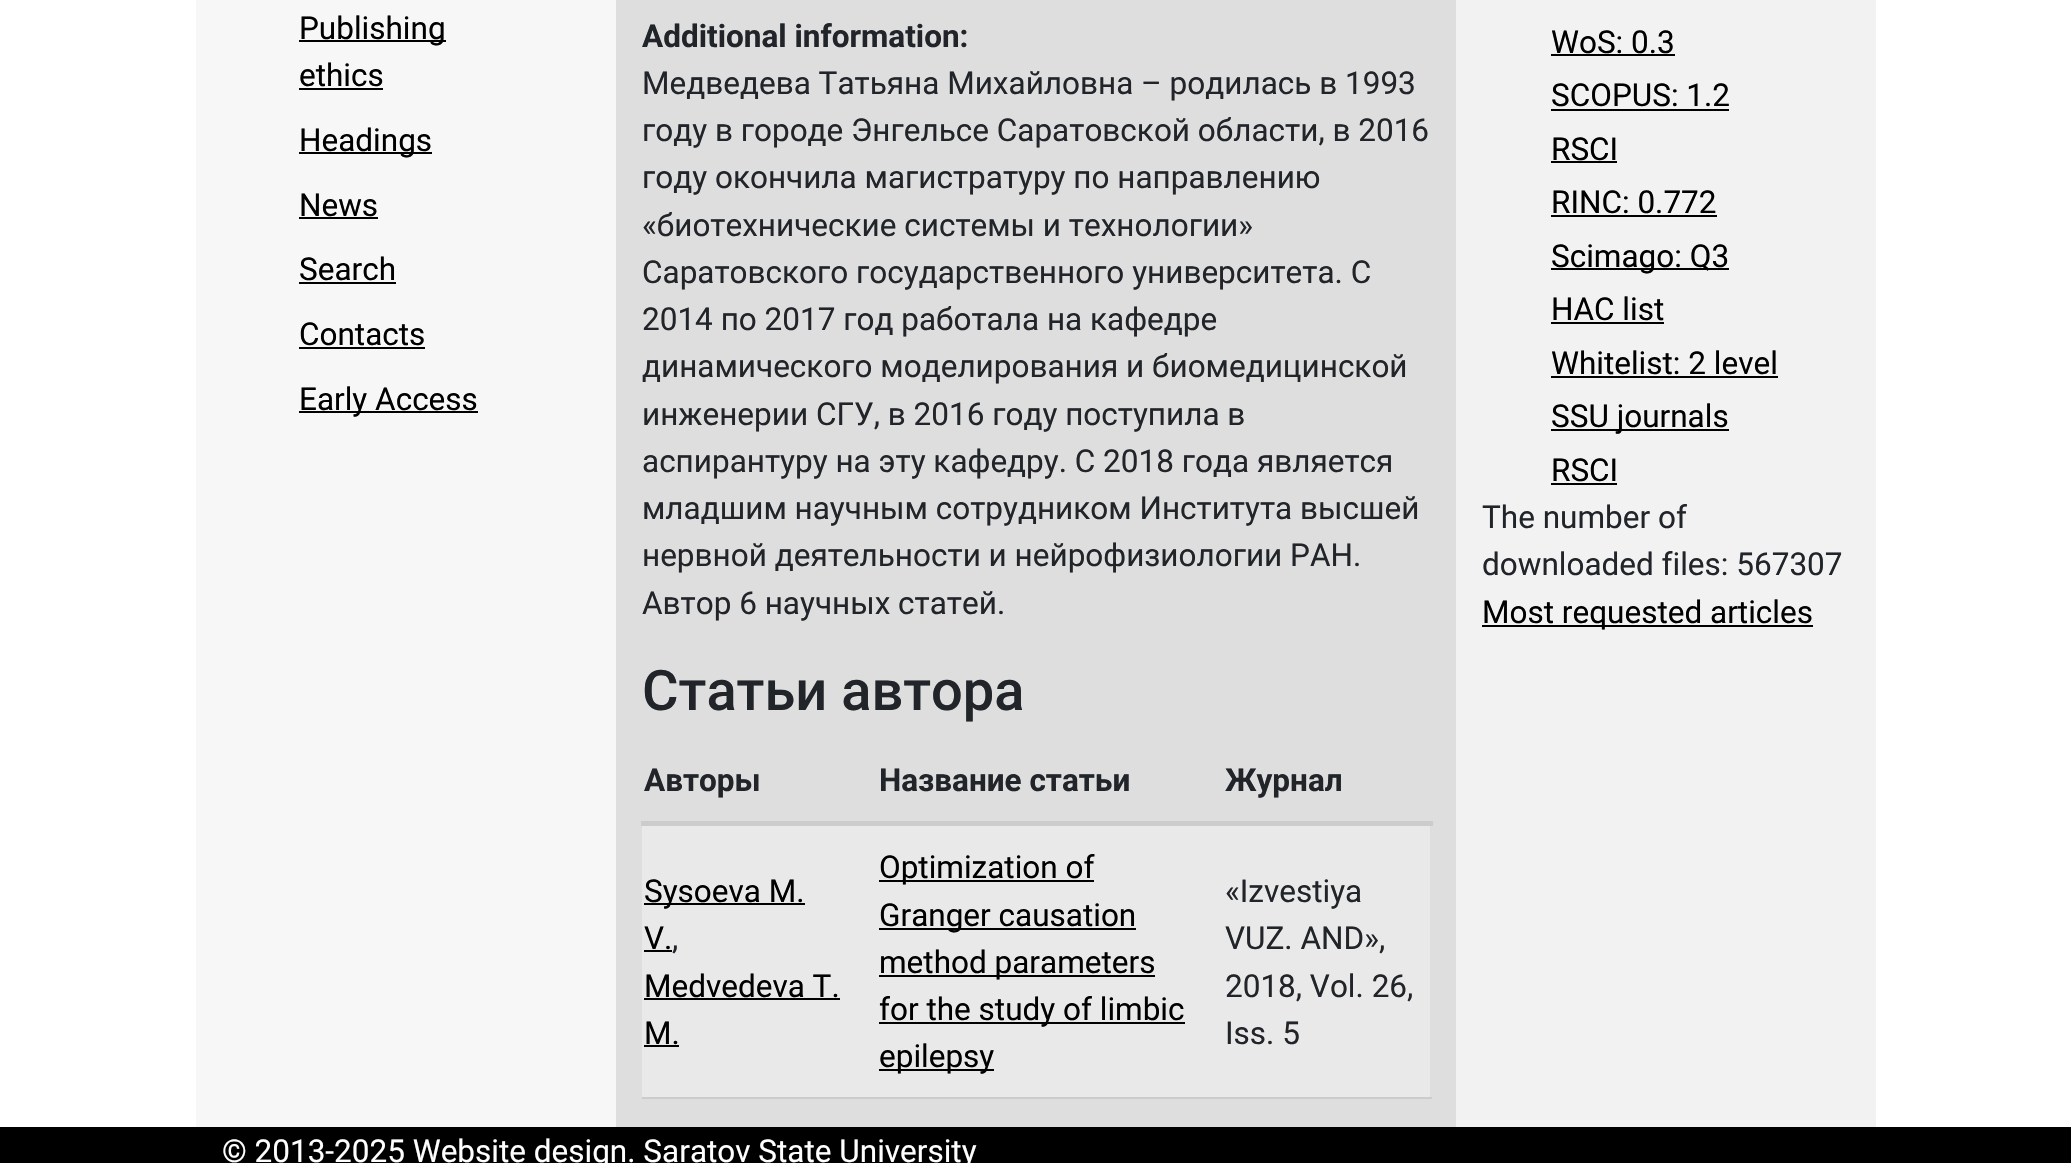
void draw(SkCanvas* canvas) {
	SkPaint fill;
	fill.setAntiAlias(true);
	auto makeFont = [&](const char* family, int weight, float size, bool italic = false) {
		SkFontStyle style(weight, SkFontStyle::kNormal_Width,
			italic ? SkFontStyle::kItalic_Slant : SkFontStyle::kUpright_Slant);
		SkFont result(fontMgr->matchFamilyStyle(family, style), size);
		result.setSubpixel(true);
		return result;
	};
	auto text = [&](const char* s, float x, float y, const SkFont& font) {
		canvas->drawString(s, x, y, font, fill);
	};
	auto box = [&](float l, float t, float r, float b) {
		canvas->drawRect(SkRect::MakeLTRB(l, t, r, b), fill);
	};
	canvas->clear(0xFFFFFFFF);
	fill.setColor(0xFFF7F7F7);
	box(196, 0, 616, 1127);
	fill.setColor(0xFF000000);
	box(299, 40, 446, 42);
	box(299, 88, 383, 90);
	box(299, 152, 432, 154);
	box(299, 217, 378, 219);
	box(299, 282, 396, 284);
	box(299, 347, 425, 349);
	box(299, 411, 478, 413);
	fill.setColor(0xFFDEDEDE);
	box(616, 0, 1456, 1127);
	fill.setColor(0xFFCCCCCC);
	box(641, 821, 1433, 826);
	fill.setColor(0xFFE9E9E9);
	box(642, 826, 1430, 1097);
	fill.setColor(0xFFCCCCCC);
	box(642, 1097, 1432, 1099);
	fill.setColor(0xFF000000);
	box(644, 903, 805, 905);
	box(644, 950, 672, 952);
	box(644, 998, 840, 1000);
	box(644, 1045, 679, 1047);
	box(879, 880, 1094, 882);
	box(879, 928, 1136, 930);
	box(879, 975, 1155, 977);
	box(879, 1022, 1185, 1024);
	box(879, 1069, 994, 1071);
	fill.setColor(0xFFF2F2F2);
	box(1456, 0, 1876, 1127);
	fill.setColor(0xFF000000);
	box(1551, 54, 1675, 56);
	box(1551, 109, 1729, 111);
	box(1551, 161, 1617, 163);
	box(1551, 215, 1717, 217);
	box(1551, 268, 1729, 270);
	box(1551, 322, 1664, 324);
	box(1551, 376, 1778, 378);
	box(1551, 429, 1729, 431);
	box(1551, 483, 1617, 485);
	box(1482, 625, 1813, 627);
	box(0, 1127, 2071, 1163);
	auto font1 = makeFont("Roboto", 400, 31.5f);
	text("Publishing", 299, 39, font1);
	text("ethics", 299, 86, font1);
	text("Headings", 299, 151, font1);
	text("News", 299, 216, font1);
	text("Search", 299, 280, font1);
	text("Contacts", 299, 345, font1);
	text("Early Access", 299, 410, font1);
	auto font2 = makeFont("Roboto", 700, 31.5f);
	fill.setColor(0xFF212529);
	text("Additional information:", 642, 47, font2);
	text("Медведева Татьяна Михайловна – родилась в 1993", 642, 94, font1);
	text("году в городе Энгельсе Саратовской области, в 2016", 642, 141, font1);
	text("году окончила магистратуру по направлению", 642, 188, font1);
	text("«биотехнические системы и технологии»", 642, 236, font1);
	text("Саратовского государственного университета. С", 642, 283, font1);
	text("2014 по 2017 год работала на кафедре", 642, 330, font1);
	text("динамического моделирования и биомедицинской", 642, 377, font1);
	text("инженерии СГУ, в 2016 году поступила в", 642, 425, font1);
	text("аспирантуру на эту кафедру. С 2018 года является", 642, 472, font1);
	text("младшим научным сотрудником Института высшей", 642, 519, font1);
	text("нервной деятельности и нейрофизиологии РАН.", 642, 566, font1);
	text("Автор 6 научных статей.", 642, 614, font1);
	auto font3 = makeFont("Roboto", 500, 56);
	text("Статьи автора", 642, 710, font3);
	text("Авторы", 644, 791, font2);
	text("Название статьи", 879, 791, font2);
	text("Журнал", 1225, 791, font2);
	fill.setColor(0xFF000000);
	text("Sysoeva M.", 644, 902, font1);
	text("V.", 644, 949, font1);
	fill.setColor(0xFF212529);
	text(",", 672, 949, font1);
	fill.setColor(0xFF000000);
	text("Medvedeva T.", 644, 997, font1);
	text("M.", 644, 1044, font1);
	text("Optimization of", 879, 878, font1);
	text("Granger causation", 879, 926, font1);
	text("method parameters", 879, 973, font1);
	text("for the study of limbic", 879, 1020, font1);
	text("epilepsy", 879, 1067, font1);
	fill.setColor(0xFF212529);
	text("«Izvestiya", 1225, 902, font1);
	text("VUZ. AND»,", 1225, 949, font1);
	text("2018, Vol. 26,", 1225, 997, font1);
	text("Iss. 5", 1225, 1044, font1);
	fill.setColor(0xFF000000);
	text("WoS: 0.3", 1551, 53, font1);
	text("SCOPUS: 1.2", 1551, 106, font1);
	text("RSCI", 1551, 160, font1);
	text("RINC: 0.772", 1551, 213, font1);
	text("Scimago: Q3", 1551, 267, font1);
	text("HAC list", 1551, 320, font1);
	text("Whitelist: 2 level", 1551, 374, font1);
	text("SSU journals", 1551, 427, font1);
	text("RSCI", 1551, 481, font1);
	fill.setColor(0xFF212529);
	text("The number of", 1482, 528, font1);
	text("downloaded files: 567307", 1482, 575, font1);
	fill.setColor(0xFF000000);
	text("Most requested articles", 1482, 623, font1);
	fill.setColor(0xFFFFFFFF);
	text("© 2013-2025 Website design. Saratov State University", 222, 1162, font1);
}
